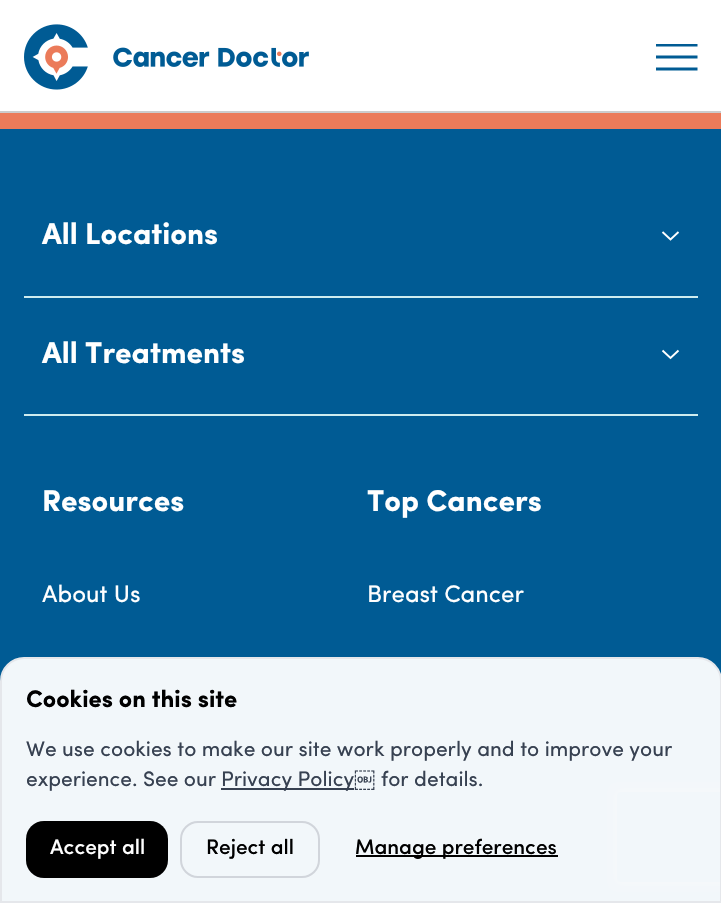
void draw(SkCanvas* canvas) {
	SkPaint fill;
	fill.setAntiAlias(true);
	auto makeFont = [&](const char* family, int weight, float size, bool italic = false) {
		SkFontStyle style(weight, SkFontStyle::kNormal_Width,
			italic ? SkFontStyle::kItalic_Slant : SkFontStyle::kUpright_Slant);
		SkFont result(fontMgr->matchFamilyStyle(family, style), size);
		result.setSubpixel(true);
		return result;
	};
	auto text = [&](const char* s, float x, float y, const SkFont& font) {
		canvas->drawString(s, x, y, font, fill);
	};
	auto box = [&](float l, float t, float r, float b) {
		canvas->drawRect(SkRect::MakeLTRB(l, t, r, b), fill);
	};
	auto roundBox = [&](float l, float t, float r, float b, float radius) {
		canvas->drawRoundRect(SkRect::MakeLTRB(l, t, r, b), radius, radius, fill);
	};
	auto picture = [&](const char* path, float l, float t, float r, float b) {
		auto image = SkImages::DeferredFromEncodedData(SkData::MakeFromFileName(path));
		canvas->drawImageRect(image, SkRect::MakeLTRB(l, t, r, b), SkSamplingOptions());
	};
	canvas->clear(0xFFEB7B5A);
	fill.setColor(0xFFFFFFFF);
	box(0, 0, 721, 111);
	fill.setColor(0xFFCCCCCC);
	box(0, 111, 721, 113);
	picture("image0.png", 24, 24, 309, 90);
	canvas->save();
	canvas->clipRect(SkRect::MakeLTRB(656, 44, 698, 71));
	fill.setStyle(SkPaint::kStroke_Style);
	fill.setStrokeWidth(3);
	fill.setColor(0xFF005B94);
	canvas->drawPath(SkPathBuilder().moveTo(655.5f, 45).lineTo(697.5f, 45).moveTo(655.5f, 57).lineTo(697.5f, 57).moveTo(655.5f, 69).lineTo(697.5f, 69).detach(), fill);
	canvas->restore();
	fill.setStyle(SkPaint::kFill_Style);
	box(0, 129, 721, 901);
	fill.setColor(0xFFCEECEF);
	box(24, 296, 698, 298);
	fill.setStyle(SkPaint::kStroke_Style);
	fill.setStrokeWidth(1.9f);
	fill.setColor(0xFFFFFFFF);
	canvas->drawPath(SkPathBuilder().moveTo(662.5f, 232).lineTo(670.5f, 239.5f).lineTo(678.5f, 232).detach(), fill);
	fill.setStyle(SkPaint::kFill_Style);
	fill.setColor(0xFFCEECEF);
	box(24, 414, 698, 416);
	fill.setStyle(SkPaint::kStroke_Style);
	fill.setColor(0xFFFFFFFF);
	canvas->drawPath(SkPathBuilder().moveTo(662.5f, 350.5f).lineTo(670.5f, 358).lineTo(678.5f, 350.5f).detach(), fill);
	canvas->save();
	canvas->clipPath(SkPathBuilder(SkPathFillType::kEvenOdd).moveTo(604, 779).lineTo(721, 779).lineTo(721, 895).lineTo(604, 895).close().moveTo(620, 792).lineTo(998, 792).cubicTo(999.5f, 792, 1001, 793.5f, 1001, 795).lineTo(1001, 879).cubicTo(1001, 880.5f, 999.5f, 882, 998, 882).lineTo(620, 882).cubicTo(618.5f, 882, 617, 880.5f, 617, 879).lineTo(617, 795).cubicTo(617, 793.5f, 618.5f, 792, 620, 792).close().detach(), true);
	fill.setStyle(SkPaint::kFill_Style);
	fill.setColor(0xFF808080);
	fill.setMaskFilter(SkMaskFilter::MakeBlur(kNormal_SkBlurStyle, 4));
	canvas->drawRoundRect(SkRect::MakeLTRB(617, 792, 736, 882), 3, 3, fill);
	fill.setMaskFilter(nullptr);
	canvas->restore();
	fill.setColor(0xF2FFFFFF);
	canvas->drawPath(SkPathBuilder().moveTo(24, 658).lineTo(698, 658).cubicTo(710.5f, 658, 721, 668.5f, 721, 681).lineTo(721, 902).lineTo(1, 902).lineTo(1, 681).cubicTo(1, 668.5f, 11.5f, 658, 24, 658).close().detach(), fill);
	fill.setStyle(SkPaint::kStroke_Style);
	fill.setStrokeWidth(2);
	fill.setColor(0xFFE5E7EB);
	canvas->drawPath(SkPathBuilder().moveTo(24, 658).lineTo(698, 658).cubicTo(710.5f, 658, 721, 668.5f, 721, 681).lineTo(721, 902).lineTo(1, 902).lineTo(1, 681).cubicTo(1, 668.5f, 11.5f, 658, 24, 658).close().detach(), fill);
	fill.setStyle(SkPaint::kFill_Style);
	fill.setColor(0xFF374151);
	box(221, 788, 354, 790);
	fill.setColor(0xFF000000);
	roundBox(26, 821, 168, 878, 18);
	fill.setStyle(SkPaint::kStroke_Style);
	fill.setColor(0xFFD1D5DB);
	canvas->drawRoundRect(SkRect::MakeLTRB(181, 822, 319, 877), 17, 17, fill);
	fill.setStyle(SkPaint::kFill_Style);
	fill.setColor(0xFF000000);
	box(356, 855, 558, 857);
	auto font1 = makeFont("Sofia", 700, 30);
	fill.setColor(0xFFFFFFFF);
	text("All Locations", 42, 244, font1);
	text("All Treatments", 42, 363, font1);
	text("Resources", 42, 511, font1);
	auto font2 = makeFont("Sofia", 400, 24);
	text("About Us", 42, 602, font2);
	text("Top Cancers", 367, 511, font1);
	text("Breast Cancer", 367, 602, font2);
	auto font3 = makeFont("Sofia", 700, 24);
	fill.setColor(0xFF000000);
	text("Cookies on this site", 26, 707, font3);
	auto font4 = makeFont("Sofia", 400, 21);
	fill.setColor(0xFF374151);
	text("We use cookies to make our site work properly and to improve your", 26, 756, font4);
	text("experience. See our", 26, 786, font4);
	text("Privacy Policy", 221, 786, font4);
	auto font5 = makeFont("Noto Sans", 400, 21);
	text("￼", 354, 786, font5);
	text("for details.", 381, 786, font4);
	auto font6 = makeFont("Sofia", 500, 21);
	fill.setColor(0xFFFFFFFF);
	text("Accept all", 50, 854, font6);
	fill.setColor(0xFF000000);
	text("Reject all", 206, 854, font6);
	text("Manage preferences", 355, 854, font6);
}
